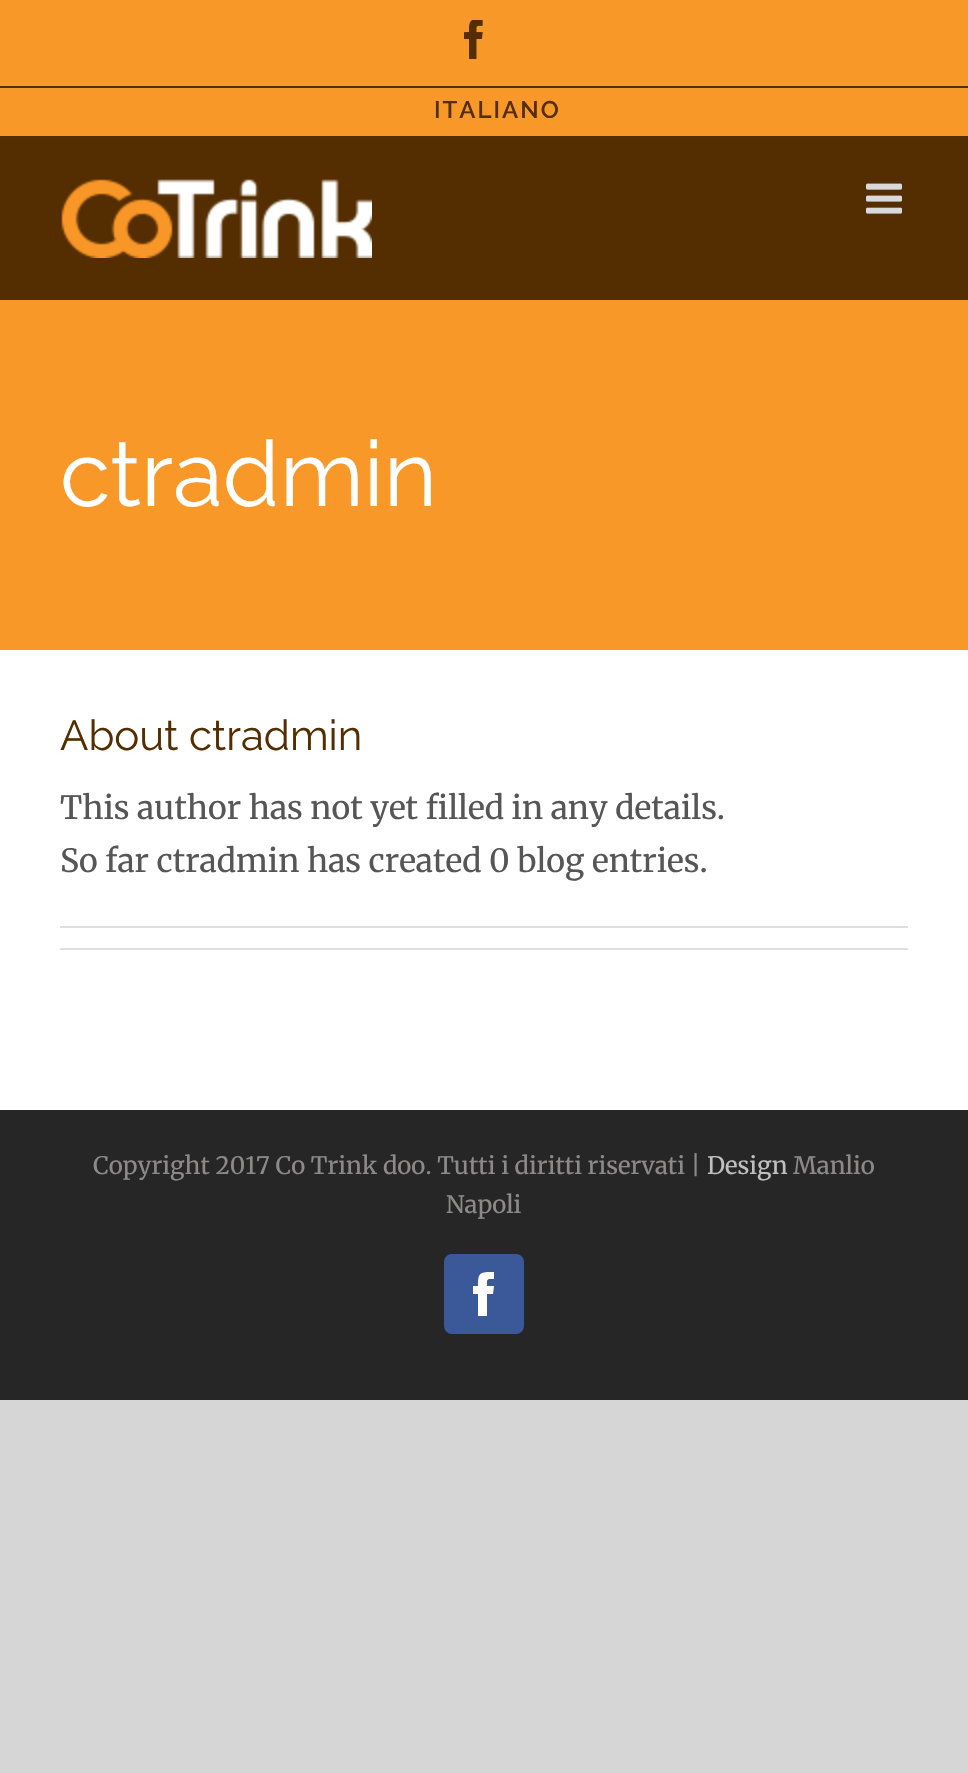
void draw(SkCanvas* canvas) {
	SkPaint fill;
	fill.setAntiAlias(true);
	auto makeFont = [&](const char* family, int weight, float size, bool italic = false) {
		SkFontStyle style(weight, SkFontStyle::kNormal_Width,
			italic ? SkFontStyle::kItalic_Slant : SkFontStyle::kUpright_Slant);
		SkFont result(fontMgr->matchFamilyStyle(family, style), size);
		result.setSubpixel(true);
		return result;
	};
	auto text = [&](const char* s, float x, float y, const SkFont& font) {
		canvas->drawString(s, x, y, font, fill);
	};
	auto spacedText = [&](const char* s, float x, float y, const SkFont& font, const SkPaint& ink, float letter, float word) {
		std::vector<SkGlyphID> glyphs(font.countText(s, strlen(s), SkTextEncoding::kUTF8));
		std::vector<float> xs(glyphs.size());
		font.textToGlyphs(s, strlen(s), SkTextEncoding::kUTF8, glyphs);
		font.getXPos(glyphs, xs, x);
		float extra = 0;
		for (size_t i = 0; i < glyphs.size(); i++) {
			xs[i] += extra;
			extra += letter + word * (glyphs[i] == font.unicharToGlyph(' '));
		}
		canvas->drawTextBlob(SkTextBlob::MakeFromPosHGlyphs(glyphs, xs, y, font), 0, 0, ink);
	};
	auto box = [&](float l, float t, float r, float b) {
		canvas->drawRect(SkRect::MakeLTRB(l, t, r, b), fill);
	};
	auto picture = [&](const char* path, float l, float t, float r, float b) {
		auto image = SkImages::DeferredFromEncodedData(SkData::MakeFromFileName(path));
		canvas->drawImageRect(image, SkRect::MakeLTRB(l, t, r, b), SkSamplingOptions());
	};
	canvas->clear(0xFFD7D6D6);
	fill.setColor(0xFFF89828);
	box(0, 0, 968, 136);
	fill.setColor(0xFF542D00);
	box(0, 136, 968, 300);
	box(0, 86, 968, 88);
	picture("image0.png", 464, 20, 483, 59);
	picture("image1.png", 61, 179, 372, 258);
	picture("image2.png", 866, 183, 902, 214);
	fill.setColor(0xFFF89828);
	box(0, 300, 968, 650);
	fill.setColor(0xFFFFFFFF);
	box(0, 650, 968, 1110);
	fill.setColor(0xFFE0DEDE);
	box(60, 926, 908, 928);
	box(60, 948, 908, 950);
	fill.setColor(0xFF262626);
	box(0, 1110, 968, 1400);
	fill.setColor(0xFF3B5998);
	canvas->drawRoundRect(SkRect::MakeLTRB(445, 1255, 523, 1333), 7, 7, fill);
	fill.setStyle(SkPaint::kStroke_Style);
	fill.setStrokeWidth(2);
	canvas->drawRoundRect(SkRect::MakeLTRB(445, 1255, 523, 1333), 7, 7, fill);
	fill.setStyle(SkPaint::kFill_Style);
	fill.setColor(0xFFFFFFFF);
	canvas->drawPath(SkPathBuilder().moveTo(487, 1316).lineTo(478, 1316).lineTo(478, 1294).lineTo(473, 1294).lineTo(473, 1286).lineTo(478, 1286).cubicTo(478, 1272, 480, 1272, 494, 1272).lineTo(494, 1279).cubicTo(486, 1279, 487, 1279, 487, 1286).lineTo(494, 1286).lineTo(493, 1294).lineTo(487, 1294).close().detach(), fill);
	auto font1 = makeFont("Raleway", 600, 24);
	fill.setColor(0xFF542D00);
	spacedText("ITALIANO", 434, 118, font1, fill, 2, 0);
	auto font2 = makeFont("Raleway", 400, 91.5f);
	fill.setColor(0xFFFFFFFF);
	text("ctradmin", 60, 506, font2);
	auto font3 = makeFont("Raleway", 400, 42);
	fill.setColor(0xFF542D00);
	text("About ctradmin", 60, 750, font3);
	auto font4 = makeFont("Merriweather", 400, 32);
	fill.setColor(0xFF565656);
	text("This author has not yet filled in any details.", 60, 819, font4);
	text("So far ctradmin has created 0 blog entries.", 60, 872, font4);
	auto font5 = makeFont("Merriweather", 400, 24);
	fill.setColor(0xFF8C8989);
	text("Copyright 2017 Co Trink doo. Tutti i diritti riservati |", 93, 1174, font5);
	fill.setColor(0xFFBFBFBF);
	text("Design", 707, 1174, font5);
	fill.setColor(0xFF8C8989);
	text("Manlio", 793, 1174, font5);
	text("Napoli", 446, 1213, font5);
}
